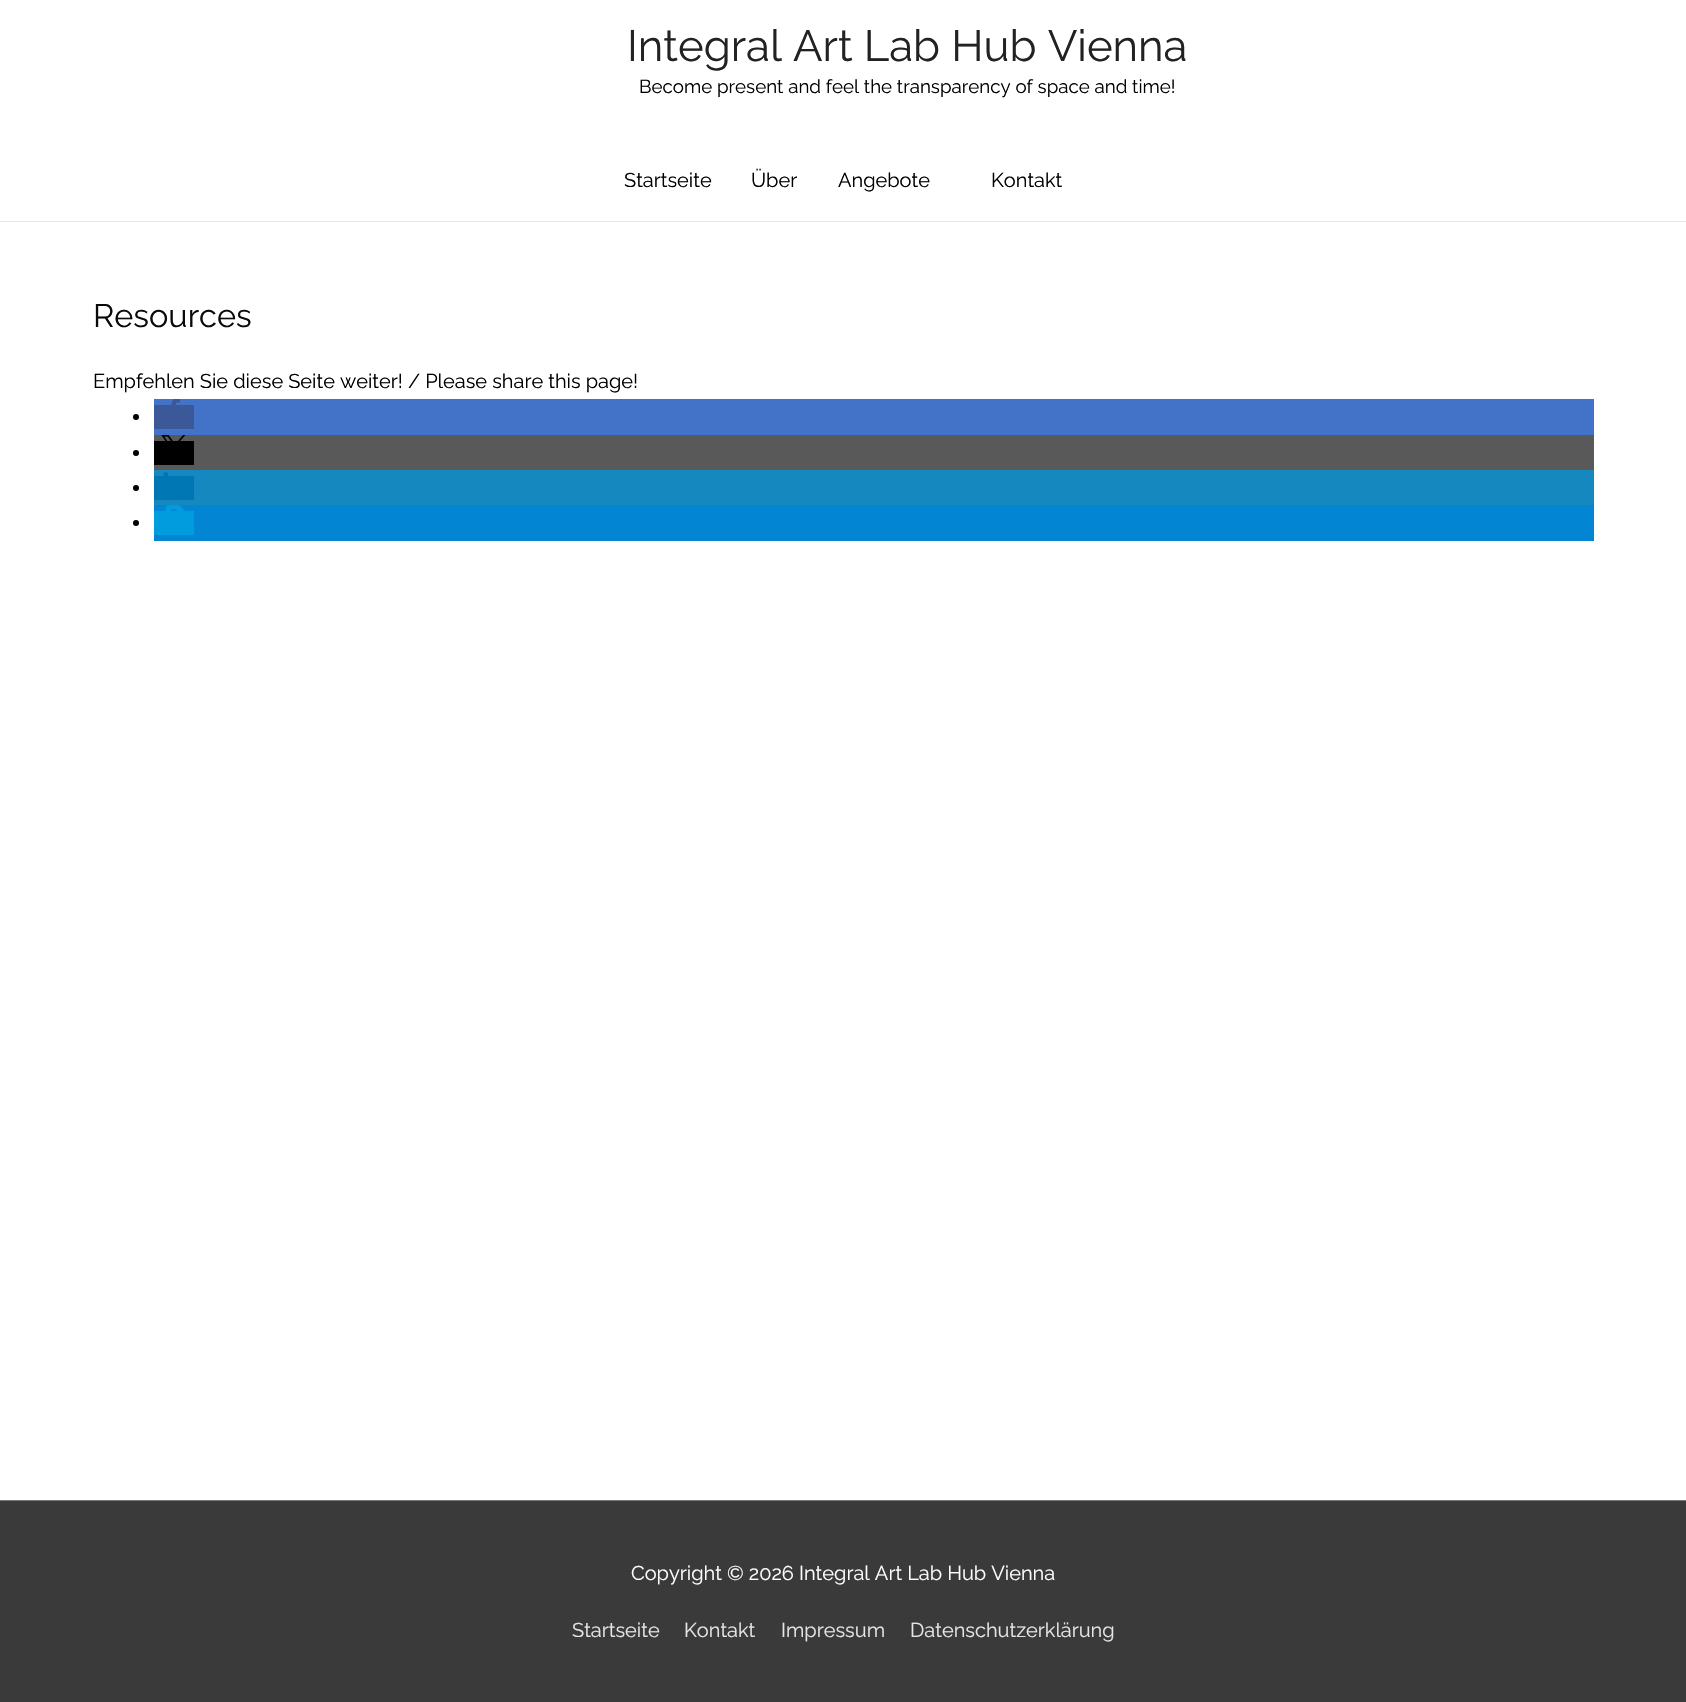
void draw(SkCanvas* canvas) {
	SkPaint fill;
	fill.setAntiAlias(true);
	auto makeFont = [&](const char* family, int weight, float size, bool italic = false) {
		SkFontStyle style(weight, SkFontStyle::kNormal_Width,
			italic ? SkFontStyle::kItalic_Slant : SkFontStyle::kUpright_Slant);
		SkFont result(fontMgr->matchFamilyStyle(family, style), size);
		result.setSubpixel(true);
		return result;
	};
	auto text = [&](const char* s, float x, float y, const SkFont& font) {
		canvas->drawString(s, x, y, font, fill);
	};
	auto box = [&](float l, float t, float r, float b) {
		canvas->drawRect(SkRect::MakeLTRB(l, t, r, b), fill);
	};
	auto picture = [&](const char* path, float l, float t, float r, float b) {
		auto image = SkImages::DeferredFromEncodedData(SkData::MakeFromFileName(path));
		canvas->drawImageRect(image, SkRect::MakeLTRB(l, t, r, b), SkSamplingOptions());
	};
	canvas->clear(0xFFFFFFFF);
	fill.setColor(0xFFE5E5E5);
	box(0, 221, 1686, 222);
	fill.setColor(0xFF4273C8);
	box(154, 399, 1594, 435);
	picture("image0.png", 171, 399, 180, 405);
	fill.setColor(0xFF000000);
	canvas->drawCircle(136, 417, 3, fill);
	fill.setColor(0xFF3B5998);
	box(154, 405, 194, 429);
	fill.setColor(0xFF595959);
	box(154, 435, 1594, 470);
	picture("image1.png", 161, 435, 186, 441);
	fill.setColor(0xFF000000);
	canvas->drawCircle(136, 453, 3, fill);
	box(154, 441, 194, 465);
	fill.setColor(0xFF1488BF);
	box(154, 470, 1594, 505);
	picture("image2.png", 163, 472, 169, 476);
	fill.setColor(0xFF000000);
	canvas->drawCircle(136, 488, 3, fill);
	fill.setColor(0xFF0077B5);
	box(154, 476, 194, 500);
	fill.setColor(0xFF0285D2);
	box(154, 505, 1594, 541);
	picture("image3.png", 165, 505, 185, 511);
	fill.setColor(0xFF000000);
	canvas->drawCircle(136, 523, 3, fill);
	fill.setColor(0xFF009CDE);
	box(154, 511, 194, 535);
	fill.setColor(0xFF7A7A7A);
	box(0, 1500, 1686, 1501);
	fill.setColor(0xFF3A3A3A);
	box(0, 1501, 1686, 1702);
	auto font1 = makeFont("Raleway", 400, 43.75f);
	fill.setColor(0xFF222222);
	text("Integral Art Lab Hub Vienna", 627, 61, font1);
	auto font2 = makeFont("Raleway", 400, 18.75f);
	fill.setColor(0xFF000000);
	text("Become present and feel the transparency of space and time!", 639, 93, font2);
	auto font3 = makeFont("Raleway", 400, 20);
	text("Startseite", 624, 187, font3);
	text("Über", 751, 187, font3);
	text("Angebote", 838, 187, font3);
	text("Kontakt", 991, 187, font3);
	auto font4 = makeFont("Raleway", 400, 32.5f);
	fill.setColor(0xFF0A0A0A);
	text("Resources", 93, 327, font4);
	fill.setColor(0xFF000000);
	text("Empfehlen Sie diese Seite weiter! / Please share this page!", 93, 388, font3);
	fill.setColor(0xFFFFFFFF);
	text("Copyright © 2026 Integral Art Lab Hub Vienna", 631, 1580, font3);
	fill.setColor(0xFFE5E5E5);
	text("Startseite", 572, 1637, font3);
	text("Kontakt", 684, 1637, font3);
	text("Impressum", 781, 1637, font3);
	text("Datenschutzerklärung", 910, 1637, font3);
}
